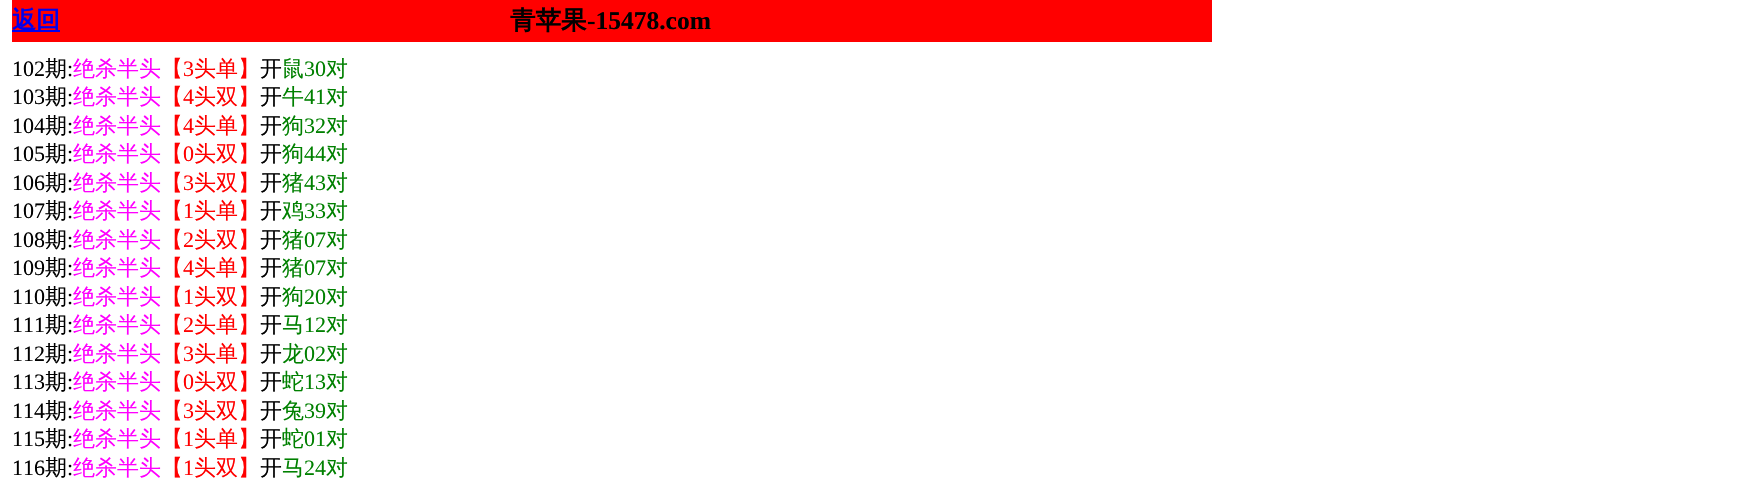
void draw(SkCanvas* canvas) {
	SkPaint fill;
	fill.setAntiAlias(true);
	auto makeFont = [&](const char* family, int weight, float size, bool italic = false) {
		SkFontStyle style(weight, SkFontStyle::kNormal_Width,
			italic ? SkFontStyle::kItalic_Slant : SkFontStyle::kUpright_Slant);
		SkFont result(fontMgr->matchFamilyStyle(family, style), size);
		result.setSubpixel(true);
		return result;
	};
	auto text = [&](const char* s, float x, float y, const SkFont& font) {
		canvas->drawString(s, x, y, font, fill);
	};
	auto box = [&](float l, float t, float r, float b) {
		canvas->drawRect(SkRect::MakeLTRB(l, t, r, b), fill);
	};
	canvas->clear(0xFFFFFFFF);
	fill.setColor(0xFFFF0000);
	box(12, 0, 1212, 42);
	fill.setColor(0xFF0000EE);
	box(12, 30, 60, 32);
	auto font1 = makeFont("WenQuanYi Zen Hei", 700, 24);
	text("返回", 12, 28, font1);
	auto font2 = makeFont("WenQuanYi Zen Hei", 700, 25.5f);
	fill.setColor(0xFF000000);
	text("青苹果", 510, 29, font2);
	auto font3 = makeFont("Liberation Serif", 700, 25.5f);
	text("-15478.com", 587, 29, font3);
	auto font4 = makeFont("Liberation Serif", 400, 22);
	text("102", 12, 76, font4);
	auto font5 = makeFont("WenQuanYi Zen Hei", 500, 22);
	text("期", 45, 76, font5);
	text(":", 67, 76, font4);
	fill.setColor(0xFFFF00FF);
	text("绝杀半头", 73, 76, font5);
	fill.setColor(0xFFFF0000);
	text("【", 161, 76, font5);
	text("3", 183, 76, font4);
	text("头单】", 194, 76, font5);
	fill.setColor(0xFF000000);
	text("开", 260, 76, font5);
	fill.setColor(0xFF008000);
	text("鼠", 282, 76, font5);
	text("30", 304, 76, font4);
	text("对", 326, 76, font5);
	fill.setColor(0xFF000000);
	text("103", 12, 104, font4);
	text("期", 45, 104, font5);
	text(":", 67, 104, font4);
	fill.setColor(0xFFFF00FF);
	text("绝杀半头", 73, 104, font5);
	fill.setColor(0xFFFF0000);
	text("【", 161, 104, font5);
	text("4", 183, 104, font4);
	text("头双】", 194, 104, font5);
	fill.setColor(0xFF000000);
	text("开", 260, 104, font5);
	fill.setColor(0xFF008000);
	text("牛", 282, 104, font5);
	text("41", 304, 104, font4);
	text("对", 326, 104, font5);
	fill.setColor(0xFF000000);
	text("104", 12, 133, font4);
	text("期", 45, 133, font5);
	text(":", 67, 133, font4);
	fill.setColor(0xFFFF00FF);
	text("绝杀半头", 73, 133, font5);
	fill.setColor(0xFFFF0000);
	text("【", 161, 133, font5);
	text("4", 183, 133, font4);
	text("头单】", 194, 133, font5);
	fill.setColor(0xFF000000);
	text("开", 260, 133, font5);
	fill.setColor(0xFF008000);
	text("狗", 282, 133, font5);
	text("32", 304, 133, font4);
	text("对", 326, 133, font5);
	fill.setColor(0xFF000000);
	text("105", 12, 161, font4);
	text("期", 45, 161, font5);
	text(":", 67, 161, font4);
	fill.setColor(0xFFFF00FF);
	text("绝杀半头", 73, 161, font5);
	fill.setColor(0xFFFF0000);
	text("【", 161, 161, font5);
	text("0", 183, 161, font4);
	text("头双】", 194, 161, font5);
	fill.setColor(0xFF000000);
	text("开", 260, 161, font5);
	fill.setColor(0xFF008000);
	text("狗", 282, 161, font5);
	text("44", 304, 161, font4);
	text("对", 326, 161, font5);
	fill.setColor(0xFF000000);
	text("106", 12, 190, font4);
	text("期", 45, 190, font5);
	text(":", 67, 190, font4);
	fill.setColor(0xFFFF00FF);
	text("绝杀半头", 73, 190, font5);
	fill.setColor(0xFFFF0000);
	text("【", 161, 190, font5);
	text("3", 183, 190, font4);
	text("头双】", 194, 190, font5);
	fill.setColor(0xFF000000);
	text("开", 260, 190, font5);
	fill.setColor(0xFF008000);
	text("猪", 282, 190, font5);
	text("43", 304, 190, font4);
	text("对", 326, 190, font5);
	fill.setColor(0xFF000000);
	text("107", 12, 218, font4);
	text("期", 45, 218, font5);
	text(":", 67, 218, font4);
	fill.setColor(0xFFFF00FF);
	text("绝杀半头", 73, 218, font5);
	fill.setColor(0xFFFF0000);
	text("【", 161, 218, font5);
	text("1", 183, 218, font4);
	text("头单】", 194, 218, font5);
	fill.setColor(0xFF000000);
	text("开", 260, 218, font5);
	fill.setColor(0xFF008000);
	text("鸡", 282, 218, font5);
	text("33", 304, 218, font4);
	text("对", 326, 218, font5);
	fill.setColor(0xFF000000);
	text("108", 12, 247, font4);
	text("期", 45, 247, font5);
	text(":", 67, 247, font4);
	fill.setColor(0xFFFF00FF);
	text("绝杀半头", 73, 247, font5);
	fill.setColor(0xFFFF0000);
	text("【", 161, 247, font5);
	text("2", 183, 247, font4);
	text("头双】", 194, 247, font5);
	fill.setColor(0xFF000000);
	text("开", 260, 247, font5);
	fill.setColor(0xFF008000);
	text("猪", 282, 247, font5);
	text("07", 304, 247, font4);
	text("对", 326, 247, font5);
	fill.setColor(0xFF000000);
	text("109", 12, 275, font4);
	text("期", 45, 275, font5);
	text(":", 67, 275, font4);
	fill.setColor(0xFFFF00FF);
	text("绝杀半头", 73, 275, font5);
	fill.setColor(0xFFFF0000);
	text("【", 161, 275, font5);
	text("4", 183, 275, font4);
	text("头单】", 194, 275, font5);
	fill.setColor(0xFF000000);
	text("开", 260, 275, font5);
	fill.setColor(0xFF008000);
	text("猪", 282, 275, font5);
	text("07", 304, 275, font4);
	text("对", 326, 275, font5);
	fill.setColor(0xFF000000);
	text("110", 12, 304, font4);
	text("期", 45, 304, font5);
	text(":", 67, 304, font4);
	fill.setColor(0xFFFF00FF);
	text("绝杀半头", 73, 304, font5);
	fill.setColor(0xFFFF0000);
	text("【", 161, 304, font5);
	text("1", 183, 304, font4);
	text("头双】", 194, 304, font5);
	fill.setColor(0xFF000000);
	text("开", 260, 304, font5);
	fill.setColor(0xFF008000);
	text("狗", 282, 304, font5);
	text("20", 304, 304, font4);
	text("对", 326, 304, font5);
	fill.setColor(0xFF000000);
	text("111", 12, 332, font4);
	text("期", 45, 332, font5);
	text(":", 67, 332, font4);
	fill.setColor(0xFFFF00FF);
	text("绝杀半头", 73, 332, font5);
	fill.setColor(0xFFFF0000);
	text("【", 161, 332, font5);
	text("2", 183, 332, font4);
	text("头单】", 194, 332, font5);
	fill.setColor(0xFF000000);
	text("开", 260, 332, font5);
	fill.setColor(0xFF008000);
	text("马", 282, 332, font5);
	text("12", 304, 332, font4);
	text("对", 326, 332, font5);
	fill.setColor(0xFF000000);
	text("112", 12, 361, font4);
	text("期", 45, 361, font5);
	text(":", 67, 361, font4);
	fill.setColor(0xFFFF00FF);
	text("绝杀半头", 73, 361, font5);
	fill.setColor(0xFFFF0000);
	text("【", 161, 361, font5);
	text("3", 183, 361, font4);
	text("头单】", 194, 361, font5);
	fill.setColor(0xFF000000);
	text("开", 260, 361, font5);
	fill.setColor(0xFF008000);
	text("龙", 282, 361, font5);
	text("02", 304, 361, font4);
	text("对", 326, 361, font5);
	fill.setColor(0xFF000000);
	text("113", 12, 389, font4);
	text("期", 45, 389, font5);
	text(":", 67, 389, font4);
	fill.setColor(0xFFFF00FF);
	text("绝杀半头", 73, 389, font5);
	fill.setColor(0xFFFF0000);
	text("【", 161, 389, font5);
	text("0", 183, 389, font4);
	text("头双】", 194, 389, font5);
	fill.setColor(0xFF000000);
	text("开", 260, 389, font5);
	fill.setColor(0xFF008000);
	text("蛇", 282, 389, font5);
	text("13", 304, 389, font4);
	text("对", 326, 389, font5);
	fill.setColor(0xFF000000);
	text("114", 12, 418, font4);
	text("期", 45, 418, font5);
	text(":", 67, 418, font4);
	fill.setColor(0xFFFF00FF);
	text("绝杀半头", 73, 418, font5);
	fill.setColor(0xFFFF0000);
	text("【", 161, 418, font5);
	text("3", 183, 418, font4);
	text("头双】", 194, 418, font5);
	fill.setColor(0xFF000000);
	text("开", 260, 418, font5);
	fill.setColor(0xFF008000);
	text("兔", 282, 418, font5);
	text("39", 304, 418, font4);
	text("对", 326, 418, font5);
	fill.setColor(0xFF000000);
	text("115", 12, 446, font4);
	text("期", 45, 446, font5);
	text(":", 67, 446, font4);
	fill.setColor(0xFFFF00FF);
	text("绝杀半头", 73, 446, font5);
	fill.setColor(0xFFFF0000);
	text("【", 161, 446, font5);
	text("1", 183, 446, font4);
	text("头单】", 194, 446, font5);
	fill.setColor(0xFF000000);
	text("开", 260, 446, font5);
	fill.setColor(0xFF008000);
	text("蛇", 282, 446, font5);
	text("01", 304, 446, font4);
	text("对", 326, 446, font5);
	fill.setColor(0xFF000000);
	text("116", 12, 475, font4);
	text("期", 45, 475, font5);
	text(":", 67, 475, font4);
	fill.setColor(0xFFFF00FF);
	text("绝杀半头", 73, 475, font5);
	fill.setColor(0xFFFF0000);
	text("【", 161, 475, font5);
	text("1", 183, 475, font4);
	text("头双】", 194, 475, font5);
	fill.setColor(0xFF000000);
	text("开", 260, 475, font5);
	fill.setColor(0xFF008000);
	text("马", 282, 475, font5);
	text("24", 304, 475, font4);
	text("对", 326, 475, font5);
}
